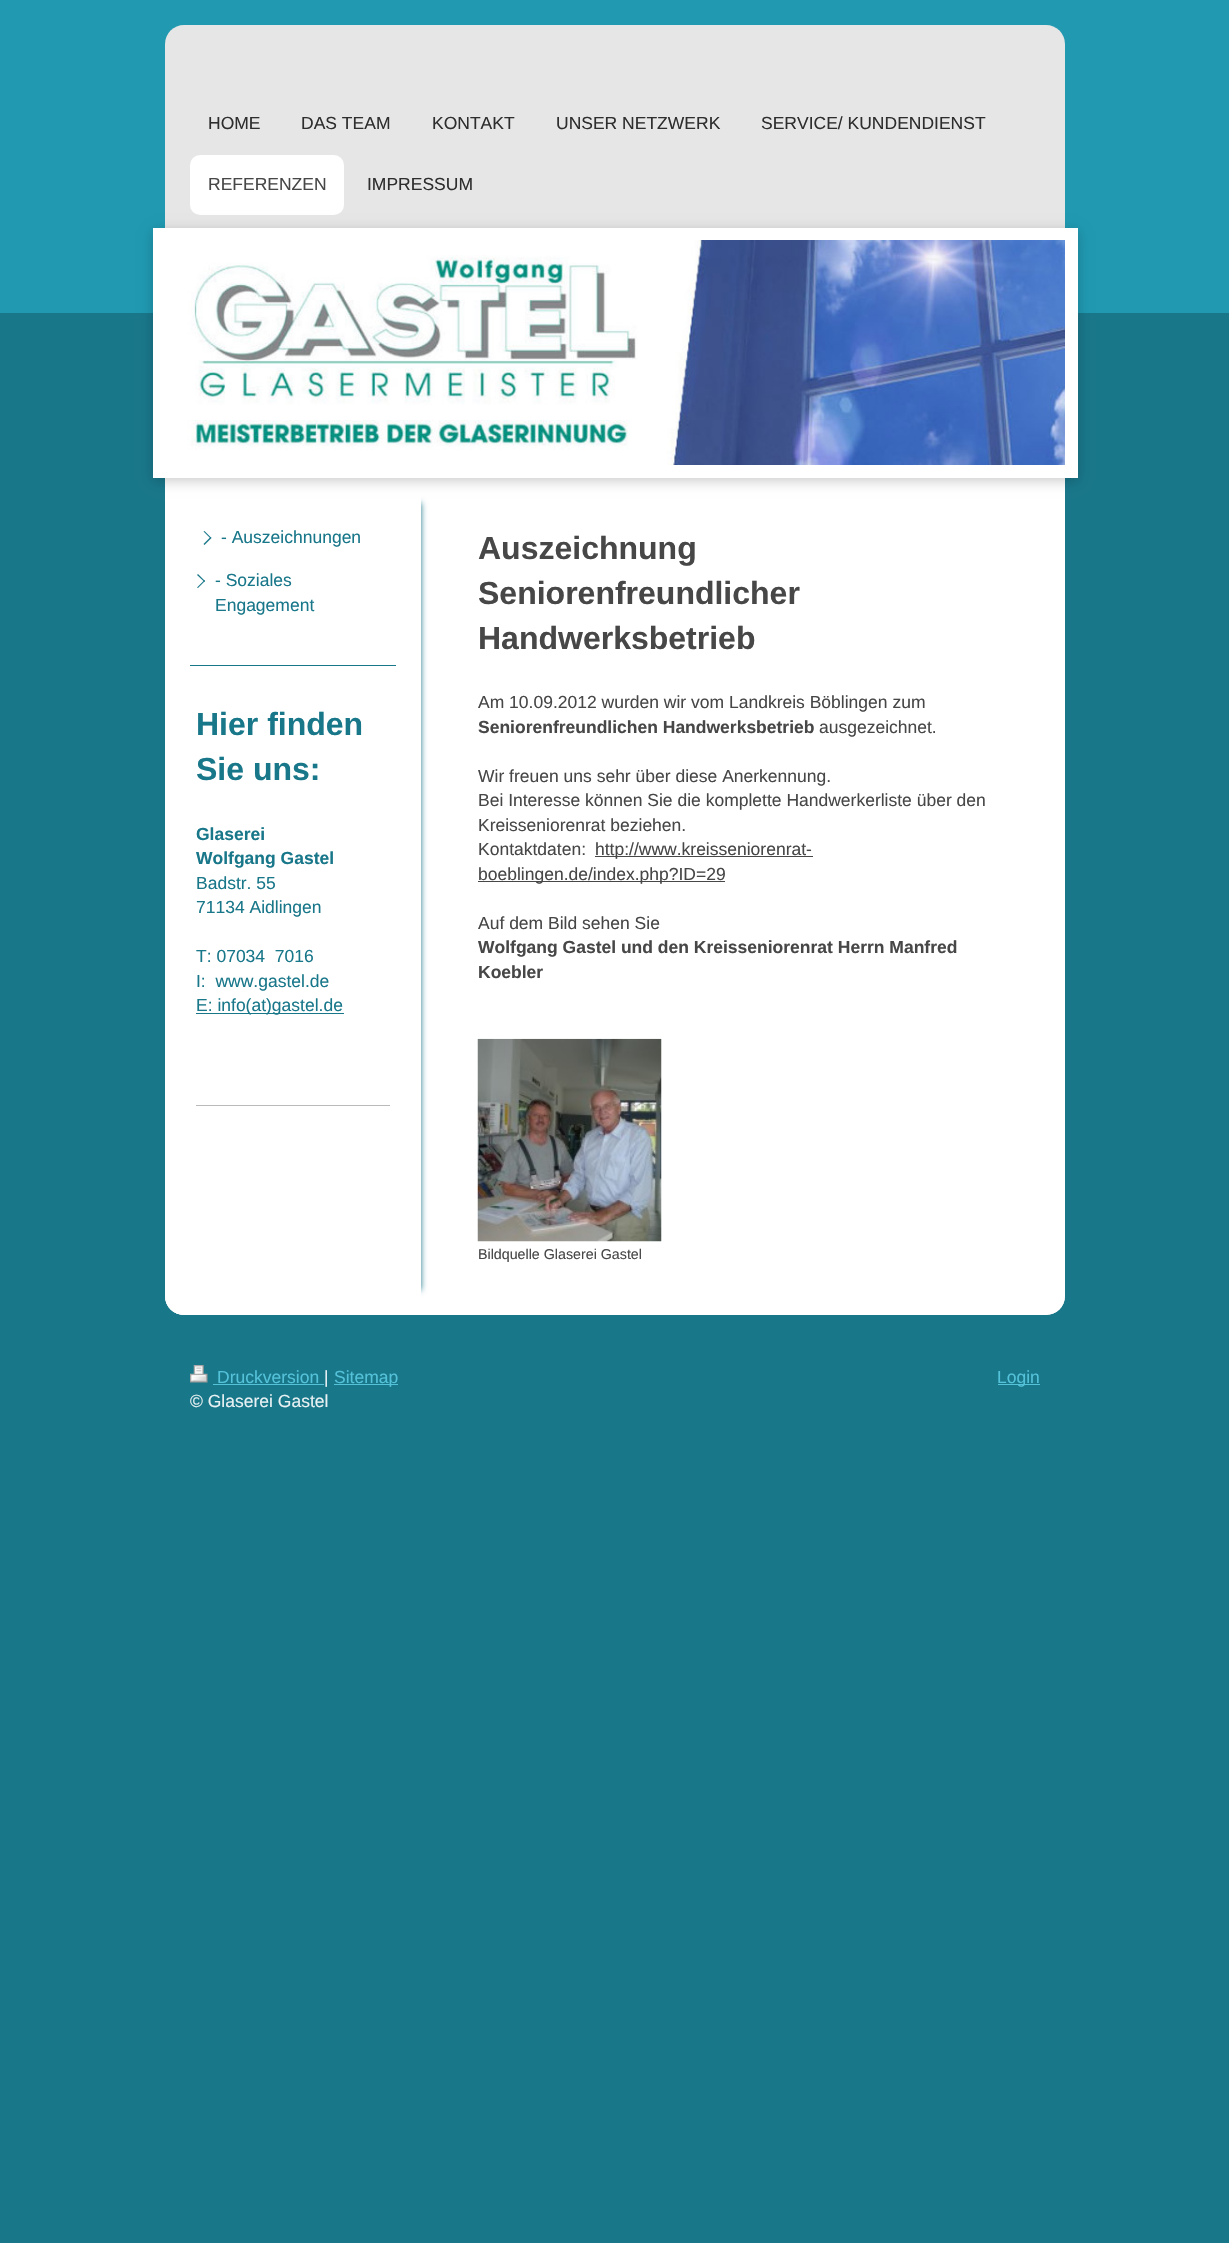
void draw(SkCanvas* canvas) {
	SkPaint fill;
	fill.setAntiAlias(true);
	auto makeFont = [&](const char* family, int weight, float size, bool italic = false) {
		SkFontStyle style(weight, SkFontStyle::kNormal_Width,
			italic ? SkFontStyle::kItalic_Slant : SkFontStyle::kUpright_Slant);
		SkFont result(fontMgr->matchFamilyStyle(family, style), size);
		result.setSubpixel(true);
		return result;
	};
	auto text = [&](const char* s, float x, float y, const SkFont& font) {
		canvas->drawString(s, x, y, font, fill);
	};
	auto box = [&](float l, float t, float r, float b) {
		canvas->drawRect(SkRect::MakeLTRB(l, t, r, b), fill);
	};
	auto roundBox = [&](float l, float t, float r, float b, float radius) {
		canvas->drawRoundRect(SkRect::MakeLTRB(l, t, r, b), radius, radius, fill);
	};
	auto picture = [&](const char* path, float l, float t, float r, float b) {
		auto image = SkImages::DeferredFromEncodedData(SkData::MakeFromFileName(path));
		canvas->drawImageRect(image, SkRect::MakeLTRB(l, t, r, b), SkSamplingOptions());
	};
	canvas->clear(0xFF19778A);
	fill.setColor(0xFF2099B1);
	box(0, 0, 1229, 313);
	fill.setColor(0xFFE6E6E6);
	roundBox(165, 25, 1065, 1315, 19);
	fill.setColor(0xFFFFFFFF);
	roundBox(190, 155, 344, 215, 10);
	canvas->drawPath(SkPathBuilder().moveTo(165, 478).lineTo(1065, 478).lineTo(1065, 1296).cubicTo(1065, 1306.5f, 1056.5f, 1315, 1046, 1315).lineTo(184, 1315).cubicTo(173.5f, 1315, 165, 1306.5f, 165, 1296).close().detach(), fill);
	fill.setColor(0xFF19778A);
	fill.setMaskFilter(SkMaskFilter::MakeBlur(kNormal_SkBlurStyle, 3));
	canvas->drawRect(SkRect::MakeLTRB(215, 503, 421, 1290), fill);
	fill.setMaskFilter(nullptr);
	fill.setColor(0xFFFFFFFF);
	canvas->drawPath(SkPathBuilder().moveTo(165, 478).lineTo(421, 478).lineTo(421, 1296).cubicTo(421, 1306.5f, 412.5f, 1315, 402, 1315).lineTo(184, 1315).cubicTo(173.5f, 1315, 165, 1306.5f, 165, 1296).close().detach(), fill);
	fill.setColor(0x33000000);
	fill.setMaskFilter(SkMaskFilter::MakeBlur(kNormal_SkBlurStyle, 6));
	canvas->drawRect(SkRect::MakeLTRB(153, 231, 1078, 481), fill);
	fill.setMaskFilter(nullptr);
	fill.setStyle(SkPaint::kStroke_Style);
	fill.setStrokeWidth(13);
	fill.setColor(0xFFFFFFFF);
	canvas->drawRect(SkRect::MakeLTRB(159.5f, 234.5f, 1071.5f, 471.5f), fill);
	picture("image0.png", 165, 240, 1065, 465);
	fill.setStyle(SkPaint::kFill_Style);
	fill.setColor(0xFF19778A);
	box(190, 665, 396, 666);
	canvas->drawPath(SkPathBuilder().moveTo(204.5f, 531).lineTo(211.5f, 538).lineTo(210.5f, 538.5f).lineTo(203.5f, 531.5f).close().detach(), fill);
	canvas->drawPath(SkPathBuilder().moveTo(210.5f, 537).lineTo(211.5f, 538).lineTo(204.5f, 545).lineTo(203.5f, 544).close().detach(), fill);
	canvas->drawPath(SkPathBuilder().moveTo(198, 574).lineTo(205, 581).lineTo(204.5f, 582).lineTo(197, 575).close().detach(), fill);
	canvas->drawPath(SkPathBuilder().moveTo(204.5f, 580).lineTo(205, 581).lineTo(198, 588).lineTo(197, 587.5f).close().detach(), fill);
	box(196, 1013, 344, 1014);
	fill.setColor(0xFFBABABA);
	box(196, 1105, 390, 1106);
	fill.setColor(0xFF474747);
	box(595, 856, 813, 857);
	box(478, 881, 725, 882);
	picture("image1.png", 477, 1038, 662, 1242);
	picture("image2.png", 190, 1365, 208, 1383);
	fill.setColor(0xFF54C2D9);
	box(213, 1384, 324, 1385);
	box(334, 1384, 398, 1385);
	box(998, 1384, 1040, 1385);
	auto font1 = makeFont("Liberation Sans", 400, 17.5f);
	fill.setColor(0xFF2E2E2E);
	text("HOME", 208, 129, font1);
	text("DAS TEAM", 301, 129, font1);
	text("KONTAKT", 432, 129, font1);
	text("UNSER NETZWERK", 556, 129, font1);
	text("SERVICE/ KUNDENDIENST", 761, 129, font1);
	fill.setColor(0xFF474747);
	text("REFERENZEN", 208, 190, font1);
	fill.setColor(0xFF2E2E2E);
	text("IMPRESSUM", 367, 190, font1);
	fill.setColor(0xFF19778A);
	text("- Auszeichnungen", 221, 543, font1);
	text("- Soziales", 215, 586, font1);
	text("Engagement", 215, 611, font1);
	auto font2 = makeFont("Liberation Sans", 700, 32);
	text("Hier finden", 196, 735, font2);
	text("Sie uns:", 196, 780, font2);
	auto font3 = makeFont("Liberation Sans", 700, 17.5f);
	text("Glaserei", 196, 840, font3);
	text("Wolfgang Gastel", 196, 864, font3);
	text("Badstr. 55", 196, 889, font1);
	text("71134 Aidlingen", 196, 913, font1);
	text("T: 07034  7016", 196, 962, font1);
	text("I:  www.gastel.de", 196, 987, font1);
	text("E: info(at)gastel.de", 196, 1011, font1);
	fill.setColor(0xFF474747);
	text("Auszeichnung", 478, 559, font2);
	text("Seniorenfreundlicher", 478, 604, font2);
	text("Handwerksbetrieb", 478, 649, font2);
	text("Am 10.09.2012 wurden wir vom Landkreis Böblingen zum", 478, 708, font1);
	text("Seniorenfreundlichen Handwerksbetrieb", 478, 733, font3);
	text("ausgezeichnet.", 819, 733, font1);
	text("Wir freuen uns sehr über diese Anerkennung.", 478, 782, font1);
	text("Bei Interesse können Sie die komplette Handwerkerliste über den", 478, 806, font1);
	text("Kreisseniorenrat beziehen.", 478, 831, font1);
	text("Kontaktdaten:", 478, 855, font1);
	text("http://www.kreisseniorenrat-", 595, 855, font1);
	text("boeblingen.de/index.php?ID=29", 478, 880, font1);
	text("Auf dem Bild sehen Sie", 478, 929, font1);
	text("Wolfgang Gastel und den Kreisseniorenrat Herrn Manfred", 478, 953, font3);
	text("Koebler", 478, 978, font3);
	auto font4 = makeFont("Liberation Sans", 400, 14.25f);
	text("Bildquelle Glaserei Gastel", 478, 1259, font4);
	fill.setColor(0xFF54C2D9);
	text("Druckversion", 217, 1383, font1);
	fill.setColor(0xFFE8F1F3);
	text("|", 324, 1383, font1);
	fill.setColor(0xFF54C2D9);
	text("Sitemap", 334, 1383, font1);
	fill.setColor(0xFFE8F1F3);
	text("© Glaserei Gastel", 190, 1407, font1);
	fill.setColor(0xFF54C2D9);
	text("Login", 997, 1383, font1);
}
